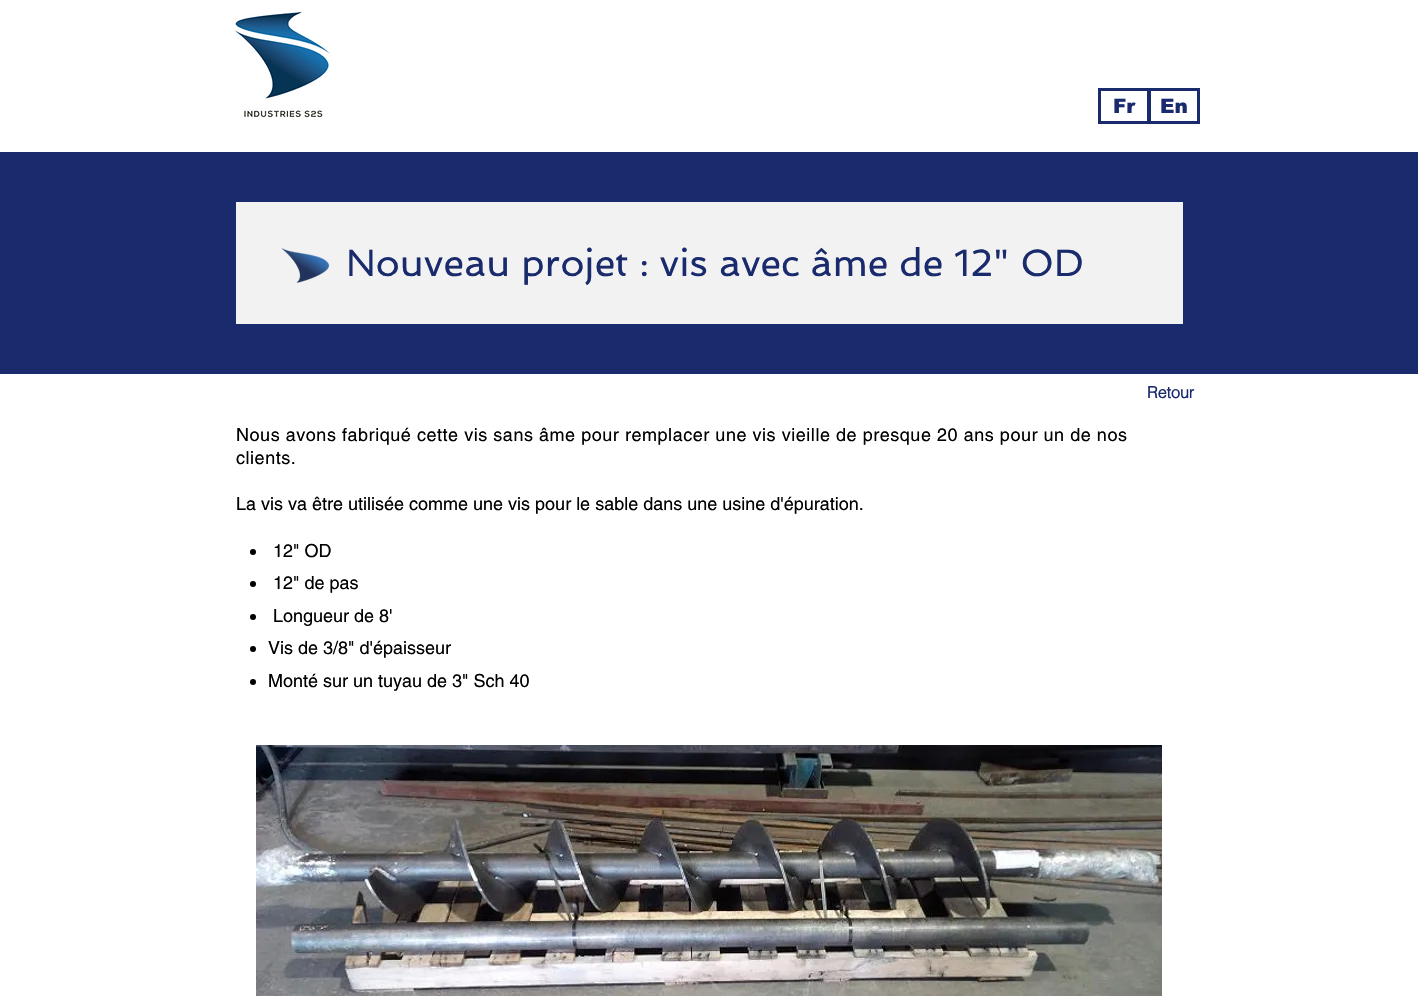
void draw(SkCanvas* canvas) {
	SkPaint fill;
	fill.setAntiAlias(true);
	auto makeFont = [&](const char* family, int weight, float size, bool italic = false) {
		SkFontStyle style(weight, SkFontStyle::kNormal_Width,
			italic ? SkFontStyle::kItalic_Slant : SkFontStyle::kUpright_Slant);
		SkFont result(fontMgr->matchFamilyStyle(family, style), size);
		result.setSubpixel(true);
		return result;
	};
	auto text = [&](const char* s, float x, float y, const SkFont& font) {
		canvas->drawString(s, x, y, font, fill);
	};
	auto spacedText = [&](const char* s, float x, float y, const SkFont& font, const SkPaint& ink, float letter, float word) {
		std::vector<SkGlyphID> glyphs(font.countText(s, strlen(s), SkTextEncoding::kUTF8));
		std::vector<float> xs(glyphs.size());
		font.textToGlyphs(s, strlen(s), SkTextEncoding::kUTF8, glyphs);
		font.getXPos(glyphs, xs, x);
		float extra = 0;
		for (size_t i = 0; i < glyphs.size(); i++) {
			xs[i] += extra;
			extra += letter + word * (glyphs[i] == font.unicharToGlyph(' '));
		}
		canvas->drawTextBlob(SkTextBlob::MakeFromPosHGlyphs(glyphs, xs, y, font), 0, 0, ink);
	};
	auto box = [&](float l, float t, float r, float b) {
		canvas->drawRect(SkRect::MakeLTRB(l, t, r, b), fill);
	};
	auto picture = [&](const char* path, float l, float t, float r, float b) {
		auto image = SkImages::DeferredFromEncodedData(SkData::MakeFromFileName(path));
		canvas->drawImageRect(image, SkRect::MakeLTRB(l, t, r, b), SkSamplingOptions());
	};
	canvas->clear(0xFFFFFFFF);
	picture("image0.png", 234, 11, 330, 118);
	fill.setStyle(SkPaint::kStroke_Style);
	fill.setStrokeWidth(3);
	fill.setColor(0xFF1A2B6D);
	canvas->drawRect(SkRect::MakeLTRB(1148.5f, 89.5f, 1198.5f, 122.5f), fill);
	canvas->drawRect(SkRect::MakeLTRB(1099.5f, 89.5f, 1149.5f, 122.5f), fill);
	fill.setStyle(SkPaint::kFill_Style);
	box(0, 152, 1418, 374);
	fill.setColor(0xFFF2F2F2);
	box(236, 202, 1183, 324);
	picture("image1.png", 281, 248, 330, 283);
	fill.setColor(0xFF000000);
	canvas->drawCircle(253, 552, 3, fill);
	canvas->drawCircle(253, 584, 3, fill);
	canvas->drawCircle(253, 617, 3, fill);
	canvas->drawCircle(253, 649, 3, fill);
	canvas->drawCircle(253, 682, 3, fill);
	picture("image2.png", 256, 745, 1162, 996);
	auto font1 = makeFont("arial", 900, 20);
	fill.setColor(0xFF1A2B6D);
	text("Fr", 1113, 113, font1);
	text("En", 1160, 113, font1);
	auto font2 = makeFont("Spinnaker", 400, 38);
	text("Nouveau projet : vis avec âme de 12\" OD", 346, 276, font2);
	auto font3 = makeFont("helvetica", 700, 16);
	text("Retour", 1147, 398, font3);
	auto font4 = makeFont("helvetica", 400, 18);
	fill.setColor(0xFF000000);
	spacedText("Nous avons fabriqué cette vis sans âme pour remplacer une vis vieille de presque 20 ans pour un de nos", 236, 441, font4, fill, 0.54f, 0);
	spacedText("clients.", 236, 464, font4, fill, 0.54f, 0);
	text("La vis va être utilisée comme une vis pour le sable dans une usine d'épuration.", 236, 510, font4);
	text("12\" OD", 273, 557, font4);
	text("12\" de pas", 273, 589, font4);
	text("Longueur de 8'", 273, 622, font4);
	text("Vis de 3/8\" d'épaisseur", 268, 654, font4);
	text("Monté sur un tuyau de 3\" Sch 40", 268, 687, font4);
}
